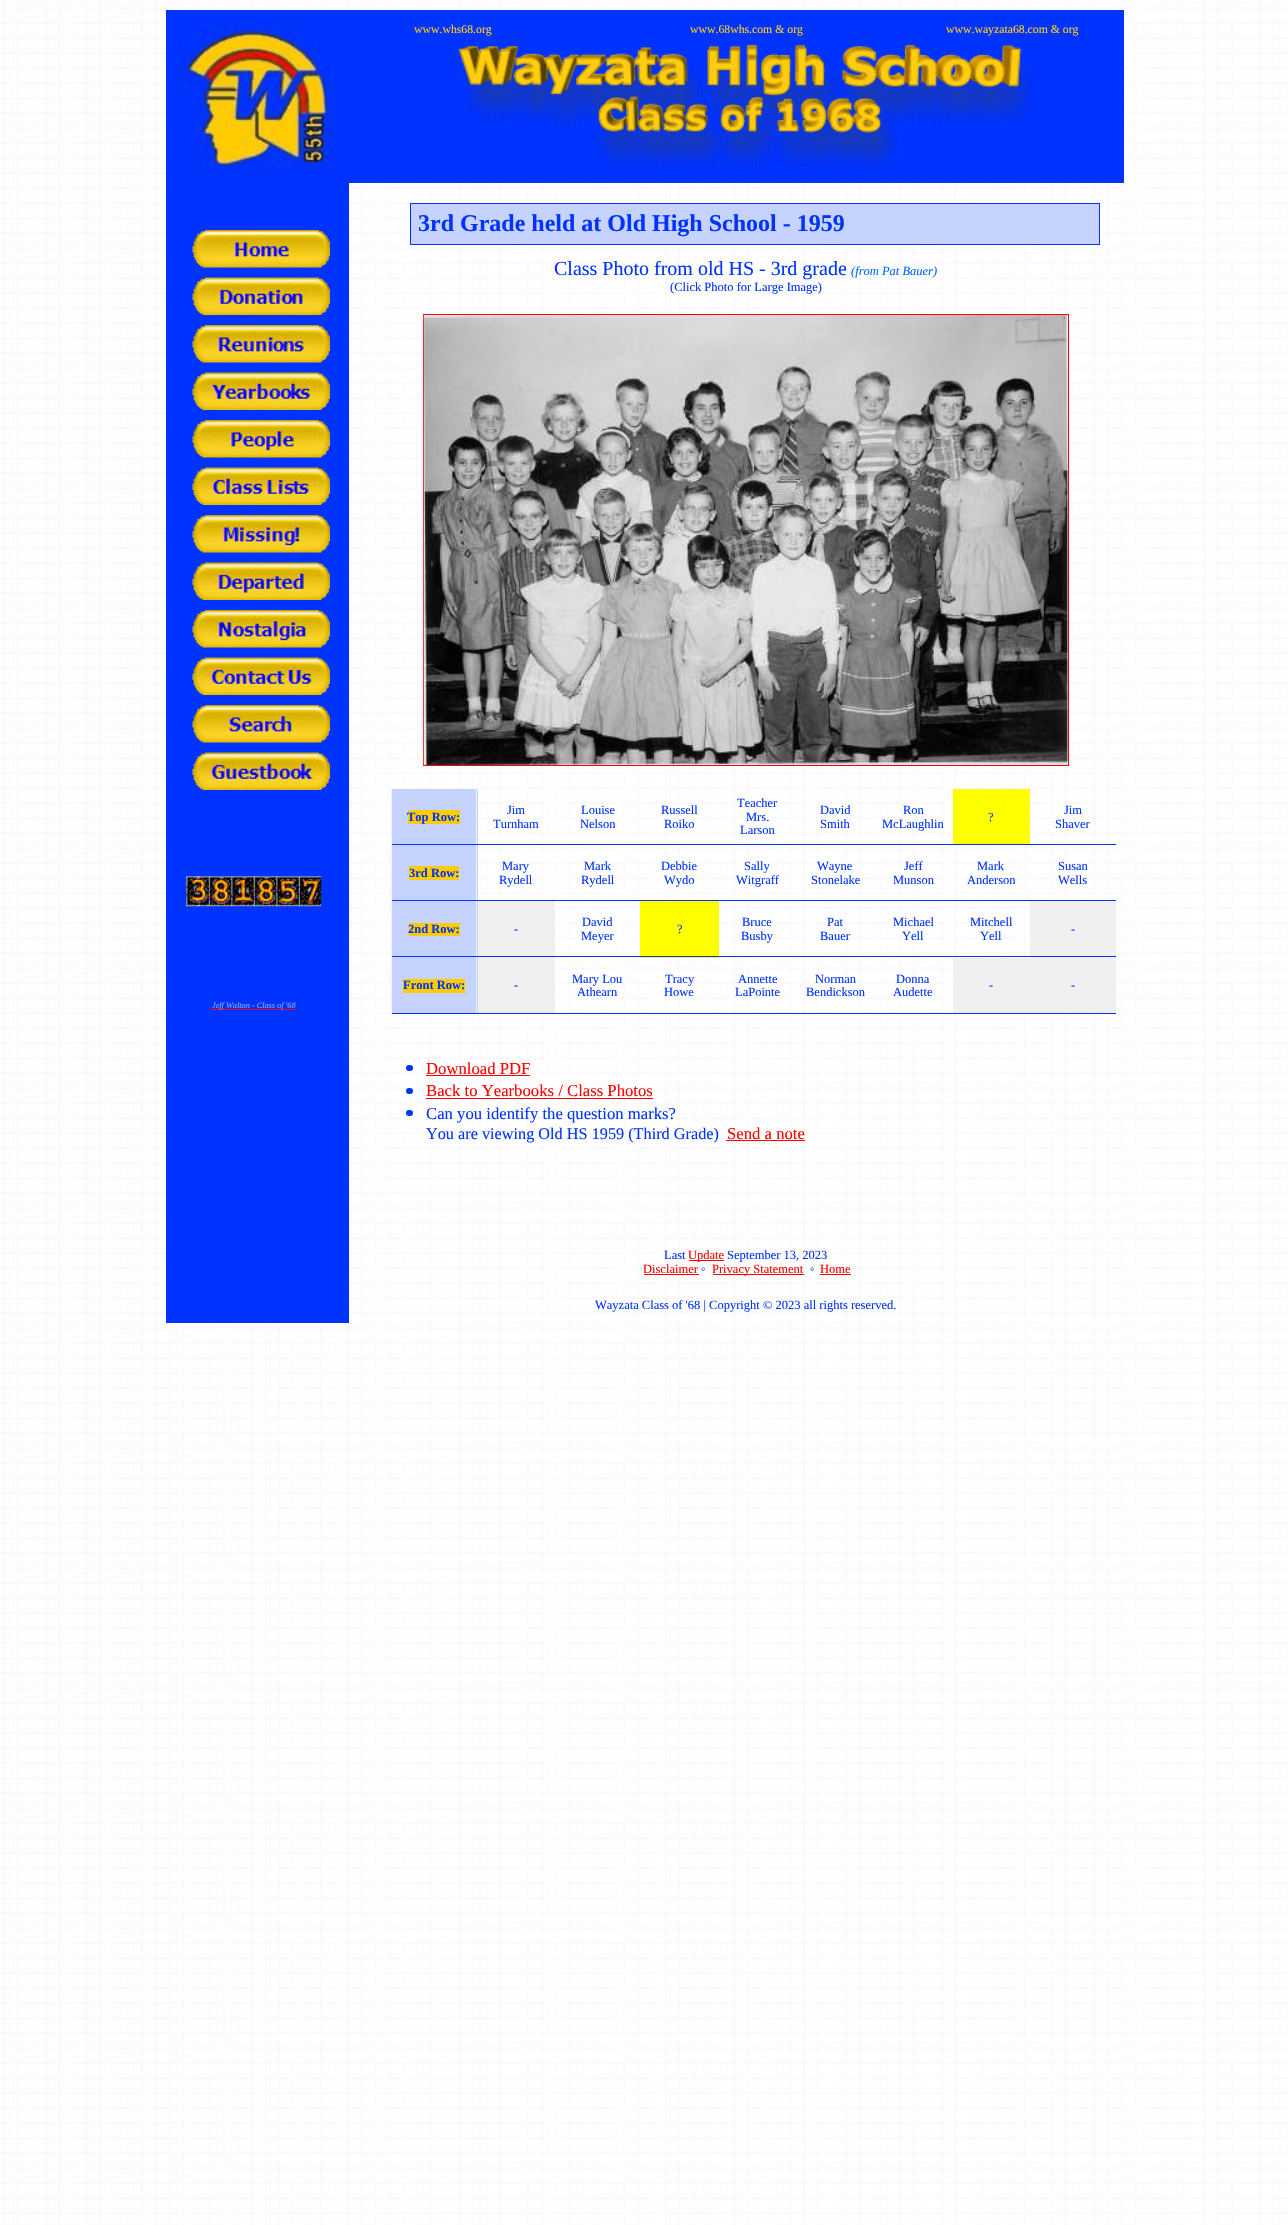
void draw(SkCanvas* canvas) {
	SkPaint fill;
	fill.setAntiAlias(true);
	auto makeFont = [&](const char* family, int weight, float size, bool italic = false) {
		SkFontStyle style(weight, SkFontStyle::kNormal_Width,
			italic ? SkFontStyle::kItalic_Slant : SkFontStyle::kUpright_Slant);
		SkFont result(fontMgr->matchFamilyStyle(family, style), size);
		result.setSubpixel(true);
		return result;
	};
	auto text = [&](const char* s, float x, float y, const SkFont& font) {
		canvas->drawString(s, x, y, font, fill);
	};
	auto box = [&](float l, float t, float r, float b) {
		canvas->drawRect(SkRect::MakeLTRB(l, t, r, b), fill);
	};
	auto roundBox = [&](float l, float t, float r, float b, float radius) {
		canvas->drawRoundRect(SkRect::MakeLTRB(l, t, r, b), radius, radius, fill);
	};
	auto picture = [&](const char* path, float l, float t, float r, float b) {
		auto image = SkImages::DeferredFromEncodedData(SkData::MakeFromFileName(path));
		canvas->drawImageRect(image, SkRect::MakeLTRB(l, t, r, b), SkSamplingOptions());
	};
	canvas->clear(0xFFFFFFFF);
	picture("image0.png", 0, 1, 1288, 2225);
	fill.setColor(0xFF0133FE);
	box(166, 10, 1124, 183);
	picture("image1.png", 177, 26, 334, 168);
	picture("image2.png", 458, 44, 1033, 169);
	box(166, 183, 349, 1323);
	picture("image3.png", 192, 230, 330, 268);
	picture("image4.png", 192, 277, 330, 315);
	picture("image5.png", 192, 325, 330, 363);
	picture("image6.png", 192, 372, 330, 410);
	picture("image7.png", 192, 420, 330, 458);
	picture("image8.png", 192, 467, 330, 505);
	picture("image9.png", 192, 515, 330, 553);
	picture("image10.png", 192, 562, 330, 600);
	picture("image11.png", 192, 610, 330, 648);
	picture("image12.png", 192, 657, 330, 695);
	picture("image13.png", 192, 705, 330, 743);
	picture("image14.png", 192, 752, 330, 790);
	picture("image15.png", 186, 876, 322, 907);
	fill.setColor(0xFFFF0000);
	box(210, 1009, 296, 1010);
	fill.setColor(0xFFC7D3FF);
	canvas->drawRect(SkRect::MakeLTRB(410.5f, 203.5f, 1099.5f, 244.5f), fill);
	fill.setStyle(SkPaint::kStroke_Style);
	fill.setStrokeWidth(1);
	fill.setColor(0xFF0133FE);
	canvas->drawRect(SkRect::MakeLTRB(410.5f, 203.5f, 1099.5f, 244.5f), fill);
	fill.setColor(0xFFFF0000);
	canvas->drawRect(SkRect::MakeLTRB(423.5f, 314.5f, 1068.5f, 765.5f), fill);
	picture("image16.png", 423, 315, 1068, 765);
	fill.setStyle(SkPaint::kFill_Style);
	fill.setColor(0xFFC7D3FF);
	box(392, 789, 478, 844);
	fill.setColor(0xFFF0F0F0);
	box(476, 789, 477, 845);
	fill.setColor(0xFF0133FE);
	box(391, 844, 1116, 845);
	fill.setColor(0xFFF0F0F0);
	box(391, 789, 392, 845);
	fill.setColor(0xFFFFCC00);
	box(408, 810, 460, 824);
	fill.setColor(0xFFFFFF00);
	box(953, 789, 1030, 844);
	fill.setColor(0xFFC7D3FF);
	box(392, 845, 478, 900);
	fill.setColor(0xFFF0F0F0);
	box(476, 845, 477, 901);
	fill.setColor(0xFF0133FE);
	box(391, 900, 1116, 901);
	fill.setColor(0xFFF0F0F0);
	box(391, 845, 392, 901);
	fill.setColor(0xFFFFCC00);
	box(409, 866, 459, 880);
	fill.setColor(0xFFC7D3FF);
	box(392, 901, 478, 1013);
	fill.setColor(0xFFF0F0F0);
	box(476, 901, 477, 1014);
	fill.setColor(0xFF0133FE);
	box(391, 956, 478, 957);
	fill.setColor(0xFFF0F0F0);
	box(391, 901, 392, 958);
	fill.setColor(0xFFFFCC00);
	box(409, 923, 460, 936);
	fill.setColor(0xFFF0F0F0);
	box(478, 901, 555, 1013);
	fill.setColor(0xFF0133FE);
	box(478, 956, 640, 957);
	fill.setColor(0xFFFFFF00);
	box(640, 901, 719, 958);
	fill.setColor(0xFF0133FE);
	box(640, 956, 1030, 957);
	fill.setColor(0xFFF0F0F0);
	box(1030, 901, 1116, 958);
	fill.setColor(0xFF0133FE);
	box(1030, 956, 1116, 957);
	box(391, 1013, 1116, 1014);
	fill.setColor(0xFFF0F0F0);
	box(391, 958, 392, 1014);
	fill.setColor(0xFFFFCC00);
	box(403, 979, 465, 993);
	fill.setColor(0xFFF0F0F0);
	box(953, 958, 1116, 1013);
	fill.setColor(0xFF0133FE);
	roundBox(406, 1065, 413, 1071, 3);
	fill.setColor(0xFFFF0000);
	box(426, 1075, 530, 1076);
	fill.setColor(0xFF0133FE);
	roundBox(406, 1088, 413, 1094, 3);
	fill.setColor(0xFFFF0000);
	box(426, 1098, 653, 1099);
	fill.setColor(0xFF0133FE);
	roundBox(406, 1110, 413, 1116, 3);
	fill.setColor(0xFFFF0000);
	box(726, 1140, 805, 1141);
	box(689, 1260, 724, 1261);
	box(644, 1274, 699, 1275);
	box(713, 1274, 804, 1275);
	box(820, 1274, 851, 1275);
	auto font1 = makeFont("Liberation Serif", 400, 11.75f);
	fill.setColor(0xFFFFD010);
	text("www.whs68.org", 414, 33, font1);
	text("www.68whs.com & org", 690, 33, font1);
	text("www.wayzata68.com & org", 946, 33, font1);
	auto font2 = makeFont("Liberation Serif", 400, 8.25f, true);
	fill.setColor(0xFF93ABFF);
	text("Jeff Walton - Class of '68", 212, 1008, font2);
	auto font3 = makeFont("Liberation Serif", 700, 24);
	fill.setColor(0xFF0133FE);
	text("3rd Grade held at Old High School - 1959", 418, 231, font3);
	auto font4 = makeFont("Liberation Serif", 400, 20);
	text("Class Photo from old HS - 3rd grade", 554, 275, font4);
	auto font5 = makeFont("Liberation Serif", 400, 12.5f, true);
	fill.setColor(0xFF0066FF);
	text("(from Pat Bauer)", 851, 275, font5);
	auto font6 = makeFont("Liberation Serif", 400, 12.5f);
	fill.setColor(0xFF0133FE);
	text("(Click Photo for Large Image)", 670, 291, font6);
	auto font7 = makeFont("Liberation Serif", 700, 12.5f);
	text("Top Row:", 407, 821, font7);
	text("Jim", 507, 814, font6);
	text("Turnham", 493, 828, font6);
	text("Louise", 581, 814, font6);
	text("Nelson", 580, 828, font6);
	text("Russell", 661, 814, font6);
	text("Roiko", 664, 828, font6);
	text("Teacher", 737, 807, font6);
	text("Mrs.", 746, 821, font6);
	text("Larson", 740, 834, font6);
	text("David", 820, 814, font6);
	text("Smith", 820, 828, font6);
	text("Ron", 903, 814, font6);
	text("McLaughlin", 882, 828, font6);
	text("?", 988, 821, font6);
	text("Jim", 1064, 814, font6);
	text("Shaver", 1055, 828, font6);
	text("3rd Row:", 409, 877, font7);
	text("Mary", 502, 870, font6);
	text("Rydell", 499, 884, font6);
	text("Mark", 584, 870, font6);
	text("Rydell", 581, 884, font6);
	text("Debbie", 661, 870, font6);
	text("Wydo", 664, 884, font6);
	text("Sally", 744, 870, font6);
	text("Witgraff", 736, 884, font6);
	text("Wayne", 817, 870, font6);
	text("Stonelake", 811, 884, font6);
	text("Jeff", 904, 870, font6);
	text("Munson", 893, 884, font6);
	text("Mark", 977, 870, font6);
	text("Anderson", 967, 884, font6);
	text("Susan", 1058, 870, font6);
	text("Wells", 1058, 884, font6);
	text("2nd Row:", 408, 933, font7);
	text("-", 514, 933, font6);
	text("David", 582, 926, font6);
	text("Meyer", 581, 940, font6);
	text("?", 677, 933, font6);
	text("Bruce", 742, 926, font6);
	text("Busby", 741, 940, font6);
	text("Pat", 827, 926, font6);
	text("Bauer", 820, 940, font6);
	text("Michael", 893, 926, font6);
	text("Yell", 902, 940, font6);
	text("Mitchell", 970, 926, font6);
	text("Yell", 980, 940, font6);
	text("-", 1071, 933, font6);
	text("Front Row:", 403, 989, font7);
	text("-", 514, 989, font6);
	text("Mary Lou", 572, 983, font6);
	text("Athearn", 577, 996, font6);
	text("Tracy", 665, 983, font6);
	text("Howe", 664, 996, font6);
	text("Annette", 738, 983, font6);
	text("LaPointe", 735, 996, font6);
	text("Norman", 815, 983, font6);
	text("Bendickson", 806, 996, font6);
	text("Donna", 896, 983, font6);
	text("Audette", 893, 996, font6);
	text("-", 989, 989, font6);
	text("-", 1071, 989, font6);
	auto font8 = makeFont("Liberation Serif", 400, 16.7f);
	fill.setColor(0xFFFF0000);
	text("Download PDF", 426, 1074, font8);
	text("Back to Yearbooks / Class Photos", 426, 1096, font8);
	fill.setColor(0xFF0133FE);
	text("Can you identify the question marks?", 426, 1119, font8);
	auto font9 = makeFont("Liberation Serif", 400, 16.25f);
	text("You are viewing Old HS 1959 (Third Grade)", 426, 1139, font9);
	fill.setColor(0xFFFF0000);
	text("Send a note", 727, 1139, font8);
	fill.setColor(0xFF0133FE);
	text("Last", 664, 1259, font6);
	fill.setColor(0xFFFF0000);
	text("Update", 688, 1259, font6);
	fill.setColor(0xFF0133FE);
	text("September 13, 2023", 727, 1259, font6);
	fill.setColor(0xFFFF0000);
	text("Disclaimer", 643, 1273, font6);
	fill.setColor(0xFF0133FE);
	text("◦", 701, 1273, font6);
	fill.setColor(0xFFFF0000);
	text("Privacy Statement", 712, 1273, font6);
	fill.setColor(0xFF0133FE);
	text("◦", 810, 1273, font6);
	fill.setColor(0xFFFF0000);
	text("Home", 820, 1273, font6);
	fill.setColor(0xFF0133FE);
	text("Wayzata Class of '68 | Copyright © 2023 all rights reserved.", 595, 1309, font6);
}
